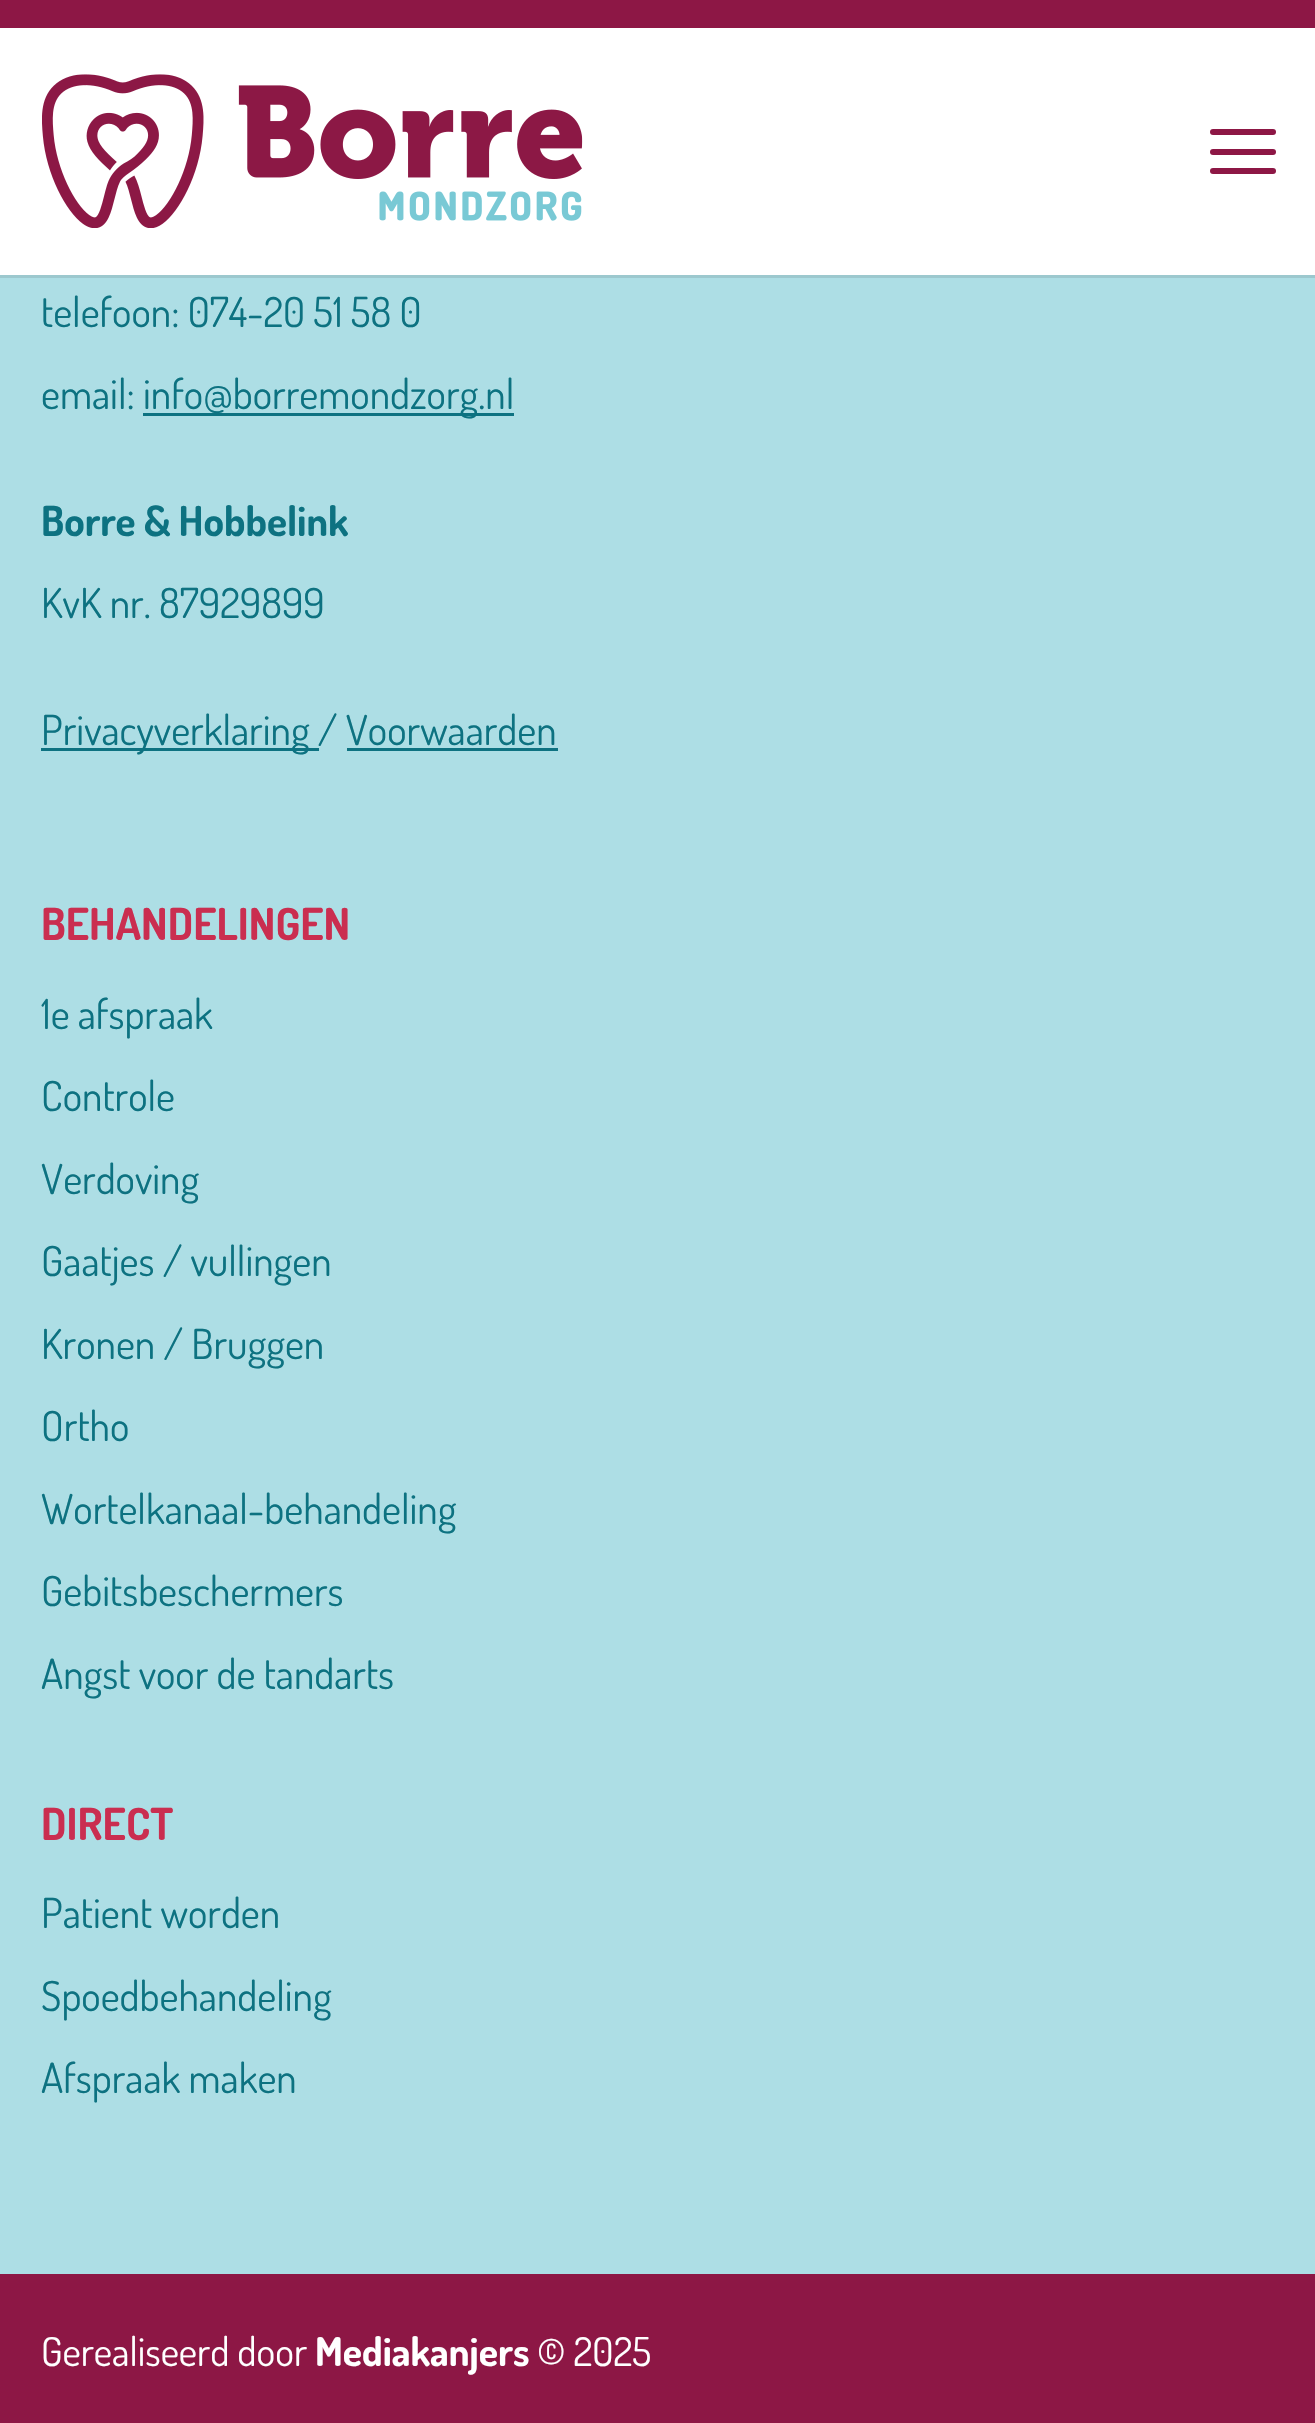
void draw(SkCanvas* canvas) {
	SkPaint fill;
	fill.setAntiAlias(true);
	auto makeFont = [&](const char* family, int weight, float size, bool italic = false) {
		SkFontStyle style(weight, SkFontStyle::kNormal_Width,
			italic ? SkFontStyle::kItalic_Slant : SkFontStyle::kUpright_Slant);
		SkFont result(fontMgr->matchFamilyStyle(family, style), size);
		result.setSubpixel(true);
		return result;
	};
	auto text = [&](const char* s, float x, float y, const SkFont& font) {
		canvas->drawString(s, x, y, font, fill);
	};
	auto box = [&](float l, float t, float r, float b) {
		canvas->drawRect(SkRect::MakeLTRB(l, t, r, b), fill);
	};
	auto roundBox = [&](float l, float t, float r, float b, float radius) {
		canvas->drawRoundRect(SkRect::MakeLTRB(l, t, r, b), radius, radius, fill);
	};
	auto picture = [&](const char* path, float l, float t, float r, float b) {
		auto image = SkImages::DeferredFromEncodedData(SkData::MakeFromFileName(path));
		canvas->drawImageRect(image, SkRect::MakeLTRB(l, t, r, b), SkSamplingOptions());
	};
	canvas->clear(0xFFADDEE5);
	fill.setColor(0xFF9CC8CE);
	box(0, 275, 1315, 278);
	fill.setColor(0xFFFFFFFF);
	box(0, 28, 1315, 275);
	fill.setColor(0xFF8D1745);
	box(0, 0, 1315, 28);
	picture("image0.png", 42, 74, 583, 228);
	roundBox(1210, 129, 1276, 135, 3);
	roundBox(1210, 149, 1276, 155, 3);
	roundBox(1210, 168, 1276, 174, 3);
	fill.setColor(0xFF0D7281);
	box(143, 413, 514, 416);
	box(41, 748, 319, 751);
	box(347, 748, 558, 751);
	fill.setColor(0xFF8D1745);
	box(0, 2274, 1315, 2423);
	auto font1 = makeFont("Dosis", 400, 41.25f);
	fill.setColor(0xFF0D7281);
	text("telefoon: 074-20 51 58 0", 41, 327, font1);
	text("email:", 41, 409, font1);
	text("info@borremondzorg.nl", 143, 409, font1);
	auto font2 = makeFont("Dosis", 700, 41.25f);
	text("Borre & Hobbelink", 41, 536, font2);
	text("KvK nr. 87929899", 41, 618, font1);
	text("Privacyverklaring / Voorwaarden", 41, 745, font1);
	auto font3 = makeFont("Dosis", 700, 44);
	fill.setColor(0xFFCA2E50);
	text("BEHANDELINGEN", 41, 940, font3);
	fill.setColor(0xFF0D7281);
	text("1e afspraak", 41, 1029, font1);
	text("Controle", 41, 1111, font1);
	text("Verdoving", 41, 1194, font1);
	text("Gaatjes / vullingen", 41, 1276, font1);
	text("Kronen / Bruggen", 41, 1359, font1);
	text("Ortho", 41, 1441, font1);
	text("Wortelkanaal-behandeling", 41, 1524, font1);
	text("Gebitsbeschermers", 41, 1606, font1);
	text("Angst voor de tandarts", 41, 1689, font1);
	fill.setColor(0xFFCA2E50);
	text("DIRECT", 41, 1840, font3);
	fill.setColor(0xFF0D7281);
	text("Patient worden", 41, 1928, font1);
	text("Spoedbehandeling", 41, 2011, font1);
	text("Afspraak maken", 41, 2093, font1);
	auto font4 = makeFont("Dosis", 400, 39.75f);
	fill.setColor(0xFFFFFFFF);
	text("Gerealiseerd door", 41, 2366, font4);
	auto font5 = makeFont("Dosis", 700, 39.75f);
	text("Mediakanjers", 315, 2366, font5);
	text("© 2025", 537, 2366, font4);
}
